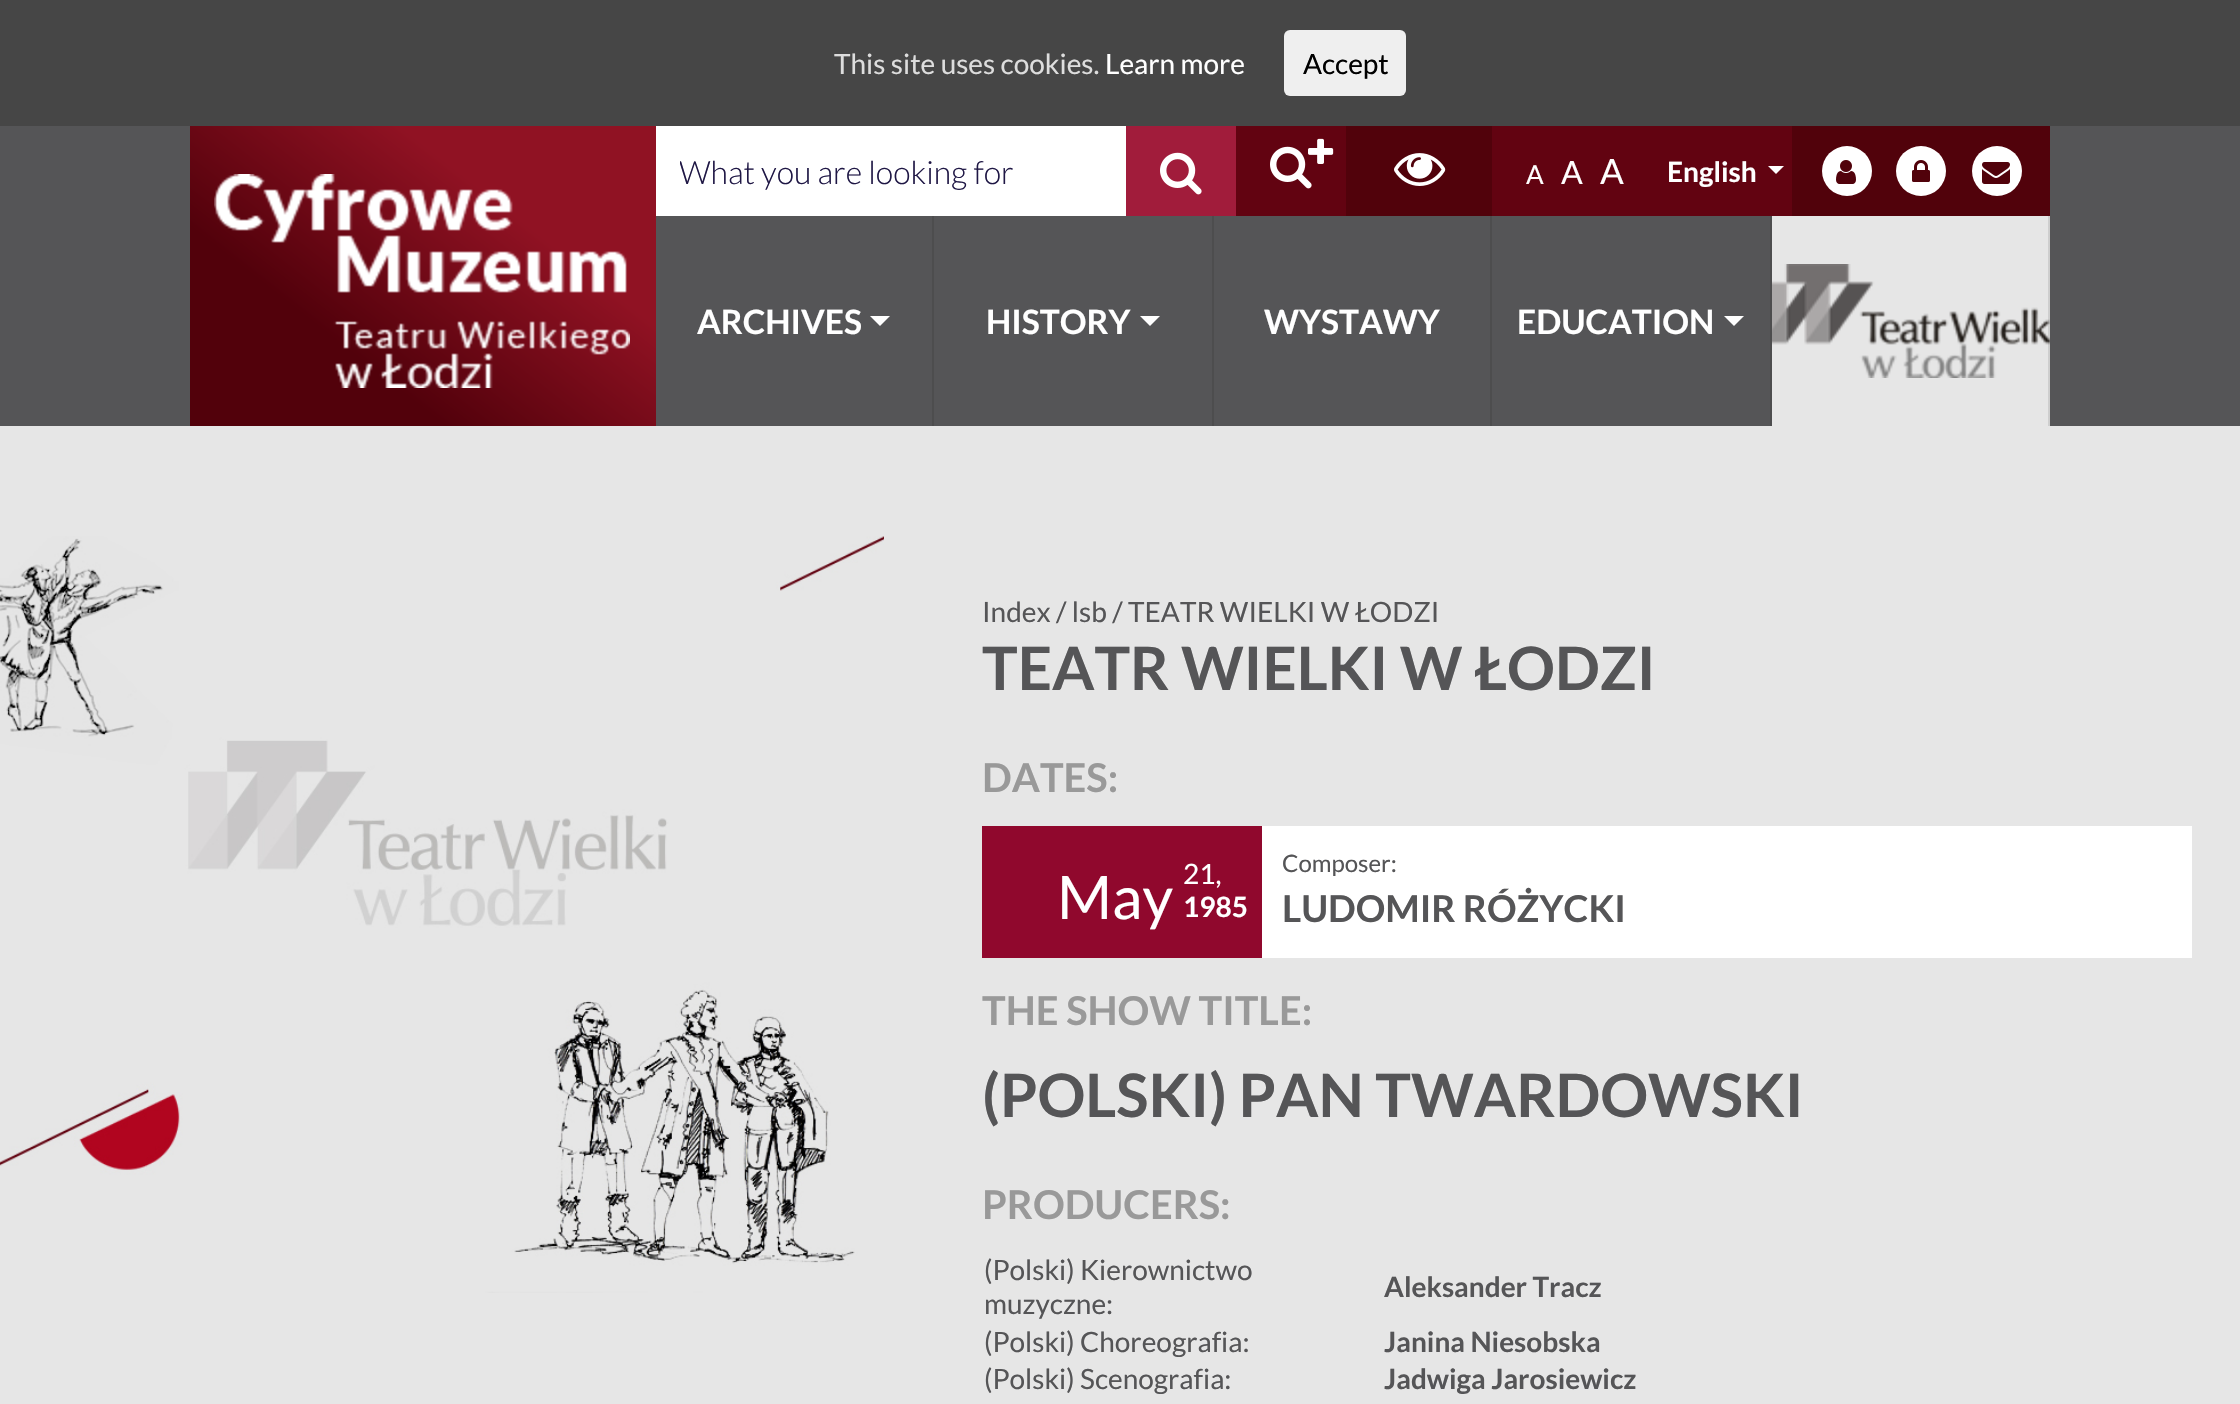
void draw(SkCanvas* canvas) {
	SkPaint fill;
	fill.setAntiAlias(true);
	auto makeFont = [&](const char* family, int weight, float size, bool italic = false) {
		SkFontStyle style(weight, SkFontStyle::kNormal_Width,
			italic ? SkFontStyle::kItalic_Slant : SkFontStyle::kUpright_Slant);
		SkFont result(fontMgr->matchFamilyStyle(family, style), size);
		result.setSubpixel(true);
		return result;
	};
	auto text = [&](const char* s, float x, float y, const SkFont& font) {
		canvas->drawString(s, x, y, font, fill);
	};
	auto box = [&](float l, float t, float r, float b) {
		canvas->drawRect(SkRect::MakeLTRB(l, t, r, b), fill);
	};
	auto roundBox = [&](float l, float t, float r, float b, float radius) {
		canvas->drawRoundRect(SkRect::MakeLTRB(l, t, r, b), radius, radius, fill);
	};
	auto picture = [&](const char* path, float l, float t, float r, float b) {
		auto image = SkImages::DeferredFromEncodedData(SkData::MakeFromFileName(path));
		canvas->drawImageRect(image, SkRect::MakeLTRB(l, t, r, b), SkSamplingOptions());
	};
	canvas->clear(0xFF555557);
	fill.setColor(0xFF464646);
	box(0, 0, 2240, 126);
	fill.setColor(0xFFEFEFEF);
	roundBox(1284, 30, 1406, 96, 6);
	{
		const SkColor colors[] = {0xFF52010B, 0xFF901223};
		const float stops[] = {0.3f, 0.7f};
		const SkPoint ends[] = {{262, 482}, {584, 70}};
		fill.setShader(SkGradientShader::MakeLinear(ends, colors, stops, 2, SkTileMode::kClamp));
		fill.setAlpha(255);
	}
	box(190, 126, 656, 426);
	picture("image0.png", 214, 174, 630, 388);
	fill.setShader(nullptr);
	fill.setColor(0xFFFFFFFF);
	box(656, 126, 1126, 216);
	fill.setColor(0xFFA11C3B);
	box(1126, 126, 1236, 216);
	picture("image1.png", 1160, 152, 1202, 195);
	fill.setColor(0xFF620311);
	box(1236, 126, 1346, 216);
	picture("image2.png", 1270, 146, 1312, 189);
	picture("image3.png", 1308, 138, 1334, 164);
	fill.setColor(0xFF51020B);
	box(1346, 126, 1492, 216);
	picture("image4.png", 1394, 153, 1446, 186);
	fill.setColor(0xFF620311);
	box(1492, 126, 1792, 216);
	fill.setColor(0xFFFFFFFF);
	canvas->drawPath(SkPathBuilder().moveTo(1768, 166).lineTo(1784, 166).lineTo(1776, 174).close().detach(), fill);
	fill.setColor(0xFF51020B);
	box(1792, 126, 2050, 216);
	fill.setColor(0xFFFFFFFF);
	canvas->drawCircle(1847, 171, 25, fill);
	picture("image5.png", 1836, 160, 1856, 184);
	canvas->drawCircle(1921, 171, 25, fill);
	picture("image6.png", 1912, 160, 1930, 182);
	canvas->drawCircle(1997, 171, 25, fill);
	picture("image7.png", 1982, 162, 2010, 184);
	fill.setColor(0xFF4D4D4E);
	box(932, 216, 934, 426);
	fill.setColor(0xFFFFFFFF);
	canvas->drawPath(SkPathBuilder().moveTo(870, 316).lineTo(890, 316).lineTo(880, 326).close().detach(), fill);
	fill.setColor(0xFF4D4D4E);
	box(1212, 216, 1214, 426);
	fill.setColor(0xFFFFFFFF);
	canvas->drawPath(SkPathBuilder().moveTo(1140, 316).lineTo(1160, 316).lineTo(1150, 326).close().detach(), fill);
	fill.setColor(0xFF4D4D4E);
	box(1490, 216, 1492, 426);
	box(1770, 216, 1772, 426);
	fill.setColor(0xFFFFFFFF);
	canvas->drawPath(SkPathBuilder().moveTo(1724, 316).lineTo(1744, 316).lineTo(1734, 326).close().detach(), fill);
	fill.setColor(0xFFE6E6E6);
	box(1772, 216, 2050, 426);
	picture("image8.png", 1772, 264, 2050, 378);
	fill.setColor(0x1A000000);
	box(2048, 216, 2050, 426);
	fill.setColor(0xFFE6E6E6);
	box(0, 426, 2240, 1404);
	picture("image9.png", 0, 536, 884, 1293);
	fill.setColor(0xFF90082D);
	box(982, 826, 1262, 958);
	fill.setColor(0xFFFFFFFF);
	box(1262, 826, 2192, 958);
	auto font1 = makeFont("Lato", 400, 28);
	fill.setColor(0xFFDDDDDD);
	text("This site uses cookies.", 834, 74, font1);
	fill.setColor(0xFFFFFFFF);
	text("Learn more", 1105, 74, font1);
	fill.setColor(0xFF000000);
	text("Accept", 1303, 74, font1);
	canvas->save();
	canvas->clipRect(SkRect::MakeLTRB(680, 152, 1102, 190));
	auto font2 = makeFont("Lato", 300, 32);
	fill.setColor(0xFF1F1745);
	text("What you are looking for", 679, 184, font2);
	canvas->restore();
	auto font3 = makeFont("Lato", 400, 26);
	fill.setColor(0xFFFFFFFF);
	text("A", 1526, 184, font3);
	auto font4 = makeFont("Lato", 400, 32);
	text("A", 1561, 184, font4);
	auto font5 = makeFont("Lato", 400, 35);
	text("A", 1600, 184, font5);
	auto font6 = makeFont("Lato", 700, 28);
	text("English", 1667, 182, font6);
	auto font7 = makeFont("Lato", 700, 33.5f);
	text("ARCHIVES", 697, 334, font7);
	text("HISTORY", 986, 334, font7);
	text("WYSTAWY", 1264, 334, font7);
	text("EDUCATION", 1517, 334, font7);
	fill.setColor(0xFF555557);
	text("Index / lsb / TEATR WIELKI W ŁODZI", 982, 622, font1);
	auto font8 = makeFont("Lato", 700, 59.9f);
	text("TEATR WIELKI W ŁODZI", 982, 690, font8);
	auto font9 = makeFont("Lato", 700, 39.75f);
	fill.setColor(0xFF999999);
	text("DATES:", 982, 792, font9);
	auto font10 = makeFont("Lato", 400, 59.9f);
	fill.setColor(0xFFFFFFFF);
	text("May", 1057, 919, font10);
	text("21,", 1183, 884, font1);
	text("1985", 1183, 917, font6);
	auto font11 = makeFont("Lato", 400, 24);
	fill.setColor(0xFF555557);
	text("Composer:", 1282, 872, font11);
	auto font12 = makeFont("Lato", 700, 37);
	text("LUDOMIR RÓŻYCKI", 1282, 922, font12);
	fill.setColor(0xFF999999);
	text("THE SHOW TITLE:", 982, 1025, font9);
	fill.setColor(0xFF555557);
	text("(POLSKI) PAN TWARDOWSKI", 982, 1117, font8);
	fill.setColor(0xFF999999);
	text("PRODUCERS:", 982, 1219, font9);
	fill.setColor(0xFF555557);
	text("(Polski) Kierownictwo", 984, 1280, font1);
	text("muzyczne:", 984, 1314, font1);
	text("Aleksander Tracz", 1384, 1297, font6);
	text("(Polski) Choreografia:", 984, 1352, font1);
	text("Janina Niesobska", 1384, 1352, font6);
	text("(Polski) Scenografia:", 984, 1389, font1);
	text("Jadwiga Jarosiewicz", 1384, 1389, font6);
}
